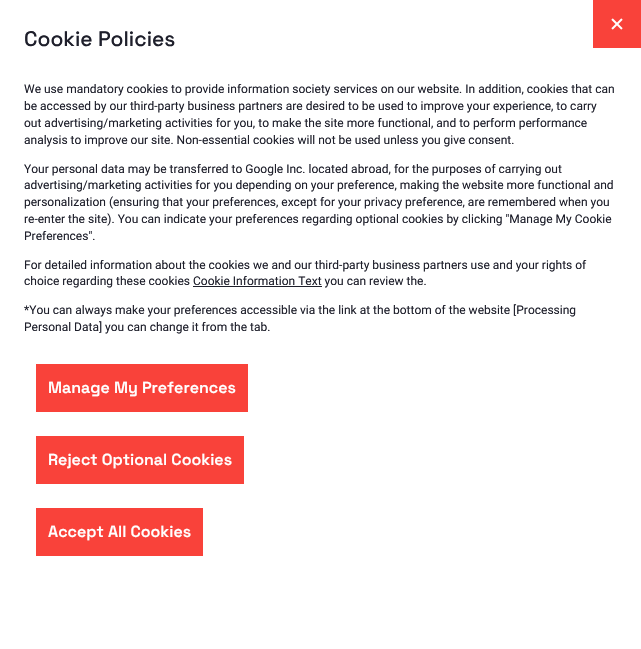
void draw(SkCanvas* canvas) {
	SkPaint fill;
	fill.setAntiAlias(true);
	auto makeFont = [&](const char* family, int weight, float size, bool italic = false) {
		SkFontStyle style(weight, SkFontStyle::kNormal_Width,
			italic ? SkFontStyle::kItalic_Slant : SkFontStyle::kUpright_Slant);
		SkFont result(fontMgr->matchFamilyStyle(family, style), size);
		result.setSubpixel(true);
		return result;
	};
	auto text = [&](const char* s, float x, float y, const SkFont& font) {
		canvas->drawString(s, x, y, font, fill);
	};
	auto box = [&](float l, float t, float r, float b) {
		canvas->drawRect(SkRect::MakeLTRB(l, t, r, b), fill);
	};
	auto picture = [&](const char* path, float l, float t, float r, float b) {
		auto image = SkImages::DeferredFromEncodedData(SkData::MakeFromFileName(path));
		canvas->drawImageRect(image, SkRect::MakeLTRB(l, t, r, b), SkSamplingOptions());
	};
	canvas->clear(0xFFFFFFFF);
	fill.setColor(0xFFF9423A);
	box(593, 0, 641, 48);
	picture("image0.png", 611, 18, 623, 30);
	fill.setColor(0xFF1E1F2B);
	box(193, 286, 322, 287);
	fill.setColor(0xFFF9423A);
	box(36, 364, 248, 412);
	box(36, 436, 244, 484);
	box(36, 508, 203, 556);
	auto font1 = makeFont("Space Grotesk", 500, 21);
	fill.setColor(0xFF1E1F2B);
	text("Cookie Policies", 24, 46, font1);
	auto font2 = makeFont("Roboto", 400, 12);
	text("We use mandatory cookies to provide information society services on our website. In addition, cookies that can", 24, 93, font2);
	text("be accessed by our third-party business partners are desired to be used to improve your experience, to carry", 24, 110, font2);
	text("out advertising/marketing activities for you, to make the site more functional, and to perform performance", 24, 127, font2);
	text("analysis to improve our site. Non-essential cookies will not be used unless you give consent.", 24, 144, font2);
	text("Your personal data may be transferred to Google Inc. located abroad, for the purposes of carrying out", 24, 173, font2);
	text("advertising/marketing activities for you depending on your preference, making the website more functional and", 24, 189, font2);
	text("personalization (ensuring that your preferences, except for your privacy preference, are remembered when you", 24, 206, font2);
	text("re-enter the site). You can indicate your preferences regarding optional cookies by clicking \"Manage My Cookie", 24, 223, font2);
	text("Preferences\".", 24, 240, font2);
	text("For detailed information about the cookies we and our third-party business partners use and your rights of", 24, 269, font2);
	text("choice regarding these cookies Cookie Information Text you can review the.", 24, 285, font2);
	text("*You can always make your preferences accessible via the link at the bottom of the website [Processing", 24, 314, font2);
	text("Personal Data] you can change it from the tab.", 24, 331, font2);
	auto font3 = makeFont("Space Grotesk", 600, 16);
	fill.setColor(0xFFFFFFFF);
	text("Manage My Preferences", 48, 393, font3);
	text("Reject Optional Cookies", 48, 465, font3);
	text("Accept All Cookies", 48, 537, font3);
}
